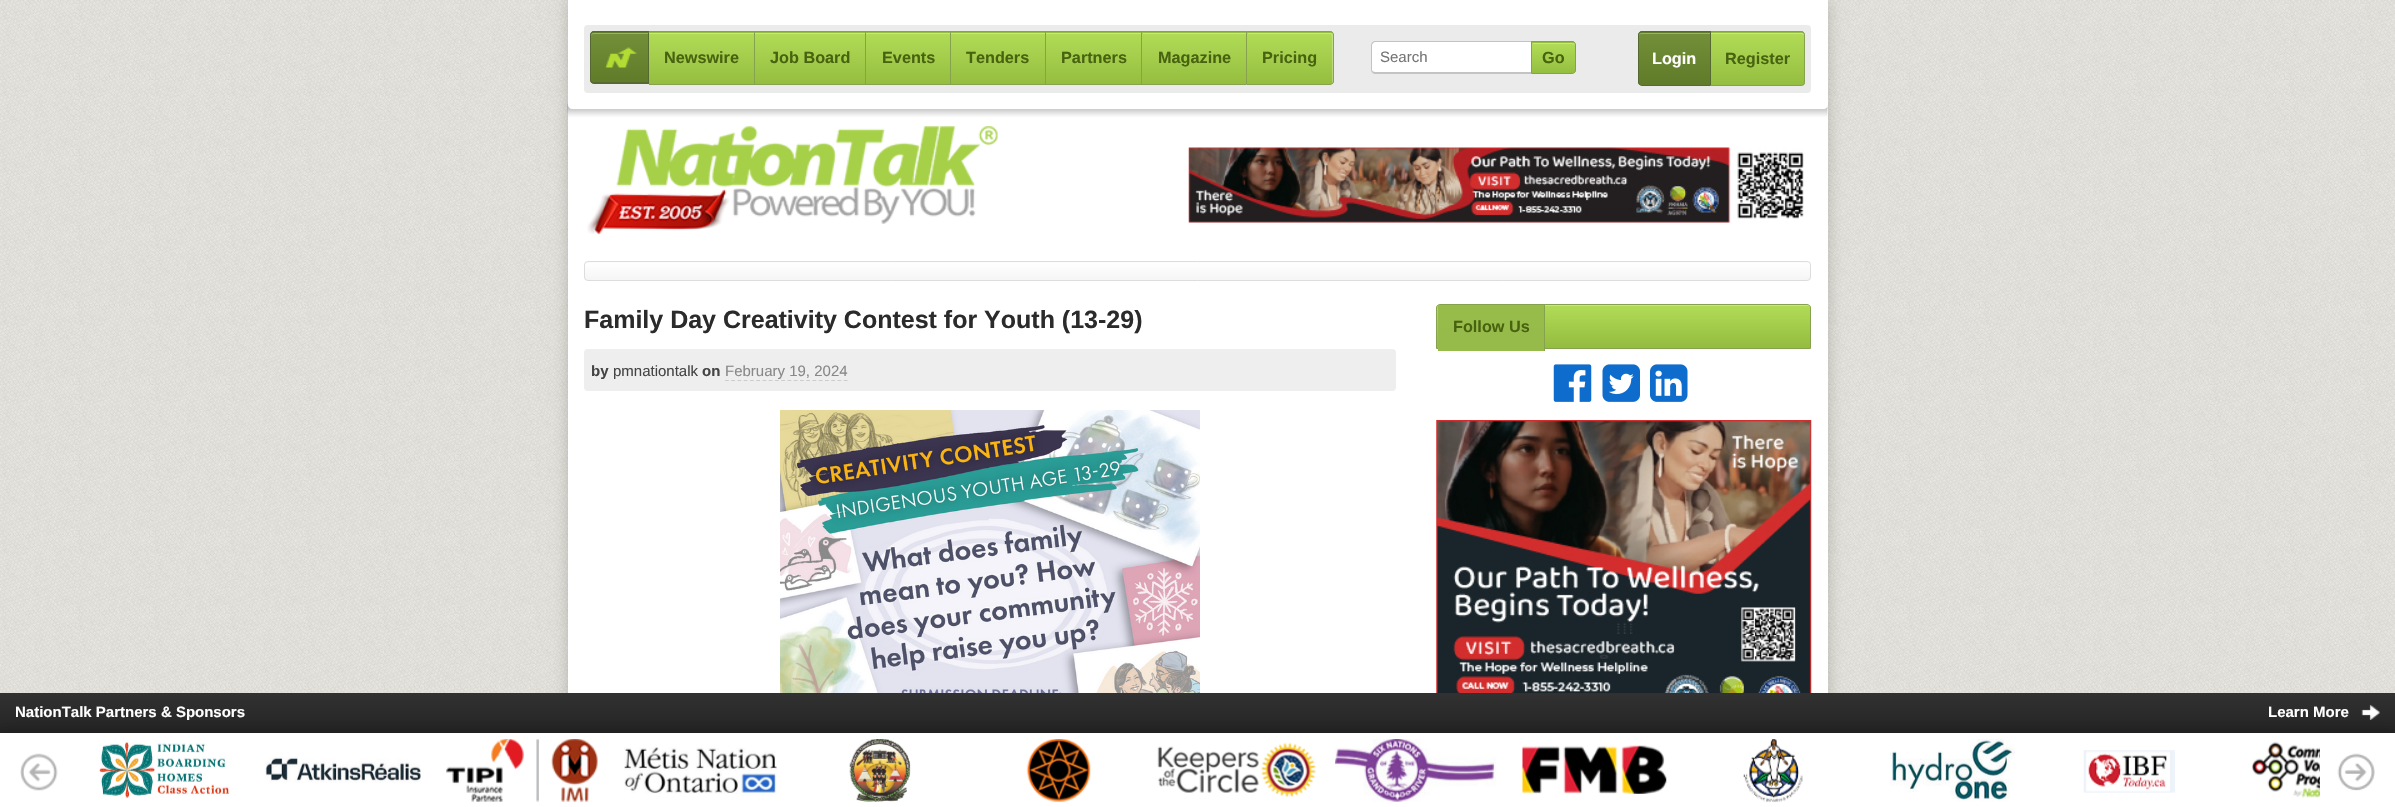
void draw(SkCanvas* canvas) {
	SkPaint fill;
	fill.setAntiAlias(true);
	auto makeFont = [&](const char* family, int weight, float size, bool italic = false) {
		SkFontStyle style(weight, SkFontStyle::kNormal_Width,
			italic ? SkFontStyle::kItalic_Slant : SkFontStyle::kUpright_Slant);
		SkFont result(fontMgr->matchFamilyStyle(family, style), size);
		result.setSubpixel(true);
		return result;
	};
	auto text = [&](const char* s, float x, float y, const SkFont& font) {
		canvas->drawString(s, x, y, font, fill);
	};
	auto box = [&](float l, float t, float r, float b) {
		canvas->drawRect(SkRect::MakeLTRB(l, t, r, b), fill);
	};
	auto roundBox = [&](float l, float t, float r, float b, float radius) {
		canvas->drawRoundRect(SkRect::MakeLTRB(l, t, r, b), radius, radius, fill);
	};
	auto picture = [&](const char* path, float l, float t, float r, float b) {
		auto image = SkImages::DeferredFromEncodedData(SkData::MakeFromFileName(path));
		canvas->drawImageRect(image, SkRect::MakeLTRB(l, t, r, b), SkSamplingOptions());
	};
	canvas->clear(0xFFFFFFFF);
	picture("image0.png", 0, 0, 2395, 693);
	fill.setColor(0x33000000);
	fill.setMaskFilter(SkMaskFilter::MakeBlur(kNormal_SkBlurStyle, 7.5f));
	canvas->drawRect(SkRect::MakeLTRB(568, 0, 1828, 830), fill);
	fill.setMaskFilter(nullptr);
	fill.setColor(0xFFFFFFFF);
	box(568, 105, 1828, 693);
	picture("image2.png", 567, 103, 1828, 117);
	canvas->drawPath(SkPathBuilder().moveTo(568, -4).lineTo(1828, -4).lineTo(1828, 105).cubicTo(1828, 107, 1826, 109, 1824, 109).lineTo(572, 109).cubicTo(570, 109, 568, 107, 568, 105).close().detach(), fill);
	fill.setColor(0xFFEBEBEB);
	roundBox(584, 25, 1811, 93, 4);
	canvas->save();
	canvas->clipPath(SkPathBuilder().moveTo(594, 31).lineTo(649, 31).lineTo(649, 84).lineTo(594, 84).cubicTo(592, 84, 590, 82, 590, 80).lineTo(590, 35).cubicTo(590, 33, 592, 31, 594, 31).close().detach(), true);
	{
		const SkColor colors[] = {0xFF739039, 0xFF607B29};
		const float stops[] = {0, 1};
		const SkPoint ends[] = {{620, -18}, {620, 33}};
		fill.setShader(SkGradientShader::MakeLinear(ends, colors, stops, 2, SkTileMode::kClamp));
		fill.setAlpha(255);
	}
	box(590, 31, 649, 33);
	{
		const SkColor colors[] = {0xFF739039, 0xFF607B29};
		const float stops[] = {0, 1};
		const SkPoint ends[] = {{620, 32}, {620, 83}};
		fill.setShader(SkGradientShader::MakeLinear(ends, colors, stops, 2, SkTileMode::kClamp));
		fill.setAlpha(255);
	}
	box(590, 33, 648, 83);
	canvas->restore();
	fill.setShader(nullptr);
	fill.setColor(0xFF9CB174);
	canvas->drawPath(SkPathBuilder().moveTo(594, 34).lineTo(649, 34).lineTo(649, 33).lineTo(594, 33).cubicTo(592, 33, 591, 34, 591, 36).cubicTo(591, 35, 592, 34, 594, 34).close().detach(), fill);
	fill.setColor(0xFF576933);
	canvas->drawPath(SkPathBuilder(SkPathFillType::kEvenOdd).moveTo(594, 31).lineTo(649, 31).lineTo(649, 84).lineTo(594, 84).cubicTo(592, 84, 590, 82, 590, 80).lineTo(590, 35).cubicTo(590, 33, 592, 31, 594, 31).close().moveTo(594, 32).lineTo(649, 32).lineTo(649, 82).lineTo(594, 82).cubicTo(592, 82, 591, 81, 591, 80).lineTo(591, 35).cubicTo(591, 34, 592, 32, 594, 32).close().detach(), fill);
	picture("image1.png", 605, 47, 637, 68);
	box(648, 33, 649, 83);
	{
		const SkColor colors[] = {0xFFB1DC57, 0xFF95BE40};
		const float stops[] = {0, 1};
		const SkPoint ends[] = {{701, -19}, {701, 33}};
		fill.setShader(SkGradientShader::MakeLinear(ends, colors, stops, 2, SkTileMode::kClamp));
		fill.setAlpha(255);
	}
	box(649, 32, 754, 33);
	{
		const SkColor colors[] = {0xFFB1DC57, 0xFF95BE40};
		const float stops[] = {0, 1};
		const SkPoint ends[] = {{701, 32}, {701, 84}};
		fill.setShader(SkGradientShader::MakeLinear(ends, colors, stops, 2, SkTileMode::kClamp));
		fill.setAlpha(255);
	}
	box(649, 34, 754, 84);
	fill.setShader(nullptr);
	fill.setColor(0xFFC8E689);
	box(649, 33, 754, 34);
	fill.setColor(0xFF86A24E);
	box(649, 31, 1246, 32);
	box(649, 84, 1246, 85);
	{
		const SkColor colors[] = {0xFFB1DC57, 0xFF95BE40};
		const float stops[] = {0, 1};
		const SkPoint ends[] = {{810, -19}, {810, 33}};
		fill.setShader(SkGradientShader::MakeLinear(ends, colors, stops, 2, SkTileMode::kClamp));
		fill.setAlpha(255);
	}
	box(754, 32, 865, 33);
	{
		const SkColor colors[] = {0xFFB1DC57, 0xFF95BE40};
		const float stops[] = {0, 1};
		const SkPoint ends[] = {{810, 32}, {810, 84}};
		fill.setShader(SkGradientShader::MakeLinear(ends, colors, stops, 2, SkTileMode::kClamp));
		fill.setAlpha(255);
	}
	box(755, 34, 865, 84);
	fill.setShader(nullptr);
	fill.setColor(0xFFC8E689);
	box(755, 33, 865, 34);
	fill.setColor(0xFF86A24E);
	box(754, 31, 755, 85);
	{
		const SkColor colors[] = {0xFFB1DC57, 0xFF95BE40};
		const float stops[] = {0, 1};
		const SkPoint ends[] = {{908, -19}, {908, 33}};
		fill.setShader(SkGradientShader::MakeLinear(ends, colors, stops, 2, SkTileMode::kClamp));
		fill.setAlpha(255);
	}
	box(865, 32, 950, 33);
	{
		const SkColor colors[] = {0xFFB1DC57, 0xFF95BE40};
		const float stops[] = {0, 1};
		const SkPoint ends[] = {{908, 32}, {908, 84}};
		fill.setShader(SkGradientShader::MakeLinear(ends, colors, stops, 2, SkTileMode::kClamp));
		fill.setAlpha(255);
	}
	box(866, 34, 950, 84);
	fill.setShader(nullptr);
	fill.setColor(0xFFC8E689);
	box(866, 33, 950, 34);
	fill.setColor(0xFF86A24E);
	box(865, 31, 866, 85);
	{
		const SkColor colors[] = {0xFFB1DC57, 0xFF95BE40};
		const float stops[] = {0, 1};
		const SkPoint ends[] = {{998, -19}, {998, 33}};
		fill.setShader(SkGradientShader::MakeLinear(ends, colors, stops, 2, SkTileMode::kClamp));
		fill.setAlpha(255);
	}
	box(950, 32, 1045, 33);
	{
		const SkColor colors[] = {0xFFB1DC57, 0xFF95BE40};
		const float stops[] = {0, 1};
		const SkPoint ends[] = {{998, 32}, {998, 84}};
		fill.setShader(SkGradientShader::MakeLinear(ends, colors, stops, 2, SkTileMode::kClamp));
		fill.setAlpha(255);
	}
	box(951, 34, 1045, 84);
	fill.setShader(nullptr);
	fill.setColor(0xFFC8E689);
	box(951, 33, 1045, 34);
	fill.setColor(0xFF86A24E);
	box(950, 31, 951, 85);
	{
		const SkColor colors[] = {0xFFB1DC57, 0xFF95BE40};
		const float stops[] = {0, 1};
		const SkPoint ends[] = {{1094, -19}, {1094, 33}};
		fill.setShader(SkGradientShader::MakeLinear(ends, colors, stops, 2, SkTileMode::kClamp));
		fill.setAlpha(255);
	}
	box(1045, 32, 1141, 33);
	{
		const SkColor colors[] = {0xFFB1DC57, 0xFF95BE40};
		const float stops[] = {0, 1};
		const SkPoint ends[] = {{1094, 32}, {1094, 84}};
		fill.setShader(SkGradientShader::MakeLinear(ends, colors, stops, 2, SkTileMode::kClamp));
		fill.setAlpha(255);
	}
	box(1046, 34, 1141, 84);
	fill.setShader(nullptr);
	fill.setColor(0xFFC8E689);
	box(1046, 33, 1141, 34);
	fill.setColor(0xFF86A24E);
	box(1045, 31, 1046, 85);
	{
		const SkColor colors[] = {0xFFB1DC57, 0xFF95BE40};
		const float stops[] = {0, 1};
		const SkPoint ends[] = {{1194, -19}, {1194, 33}};
		fill.setShader(SkGradientShader::MakeLinear(ends, colors, stops, 2, SkTileMode::kClamp));
		fill.setAlpha(255);
	}
	box(1141, 32, 1246, 33);
	{
		const SkColor colors[] = {0xFFB1DC57, 0xFF95BE40};
		const float stops[] = {0, 1};
		const SkPoint ends[] = {{1194, 32}, {1194, 84}};
		fill.setShader(SkGradientShader::MakeLinear(ends, colors, stops, 2, SkTileMode::kClamp));
		fill.setAlpha(255);
	}
	box(1142, 33, 1246, 84);
	fill.setShader(nullptr);
	fill.setColor(0xFFC8E689);
	box(1143, 33, 1246, 34);
	fill.setColor(0xFF86A24E);
	box(1141, 31, 1142, 85);
	canvas->save();
	canvas->clipPath(SkPathBuilder().moveTo(1246, 31).lineTo(1330, 31).cubicTo(1332, 31, 1334, 33, 1334, 35).lineTo(1334, 81).cubicTo(1334, 83, 1332, 85, 1330, 85).lineTo(1246, 85).close().detach(), true);
	{
		const SkColor colors[] = {0xFFB1DC57, 0xFF95BE40};
		const float stops[] = {0, 1};
		const SkPoint ends[] = {{1290, -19}, {1290, 33}};
		fill.setShader(SkGradientShader::MakeLinear(ends, colors, stops, 2, SkTileMode::kClamp));
		fill.setAlpha(255);
	}
	box(1246, 31, 1334, 33);
	{
		const SkColor colors[] = {0xFFB1DC57, 0xFF95BE40};
		const float stops[] = {0, 1};
		const SkPoint ends[] = {{1290, 32}, {1290, 84}};
		fill.setShader(SkGradientShader::MakeLinear(ends, colors, stops, 2, SkTileMode::kClamp));
		fill.setAlpha(255);
	}
	box(1247, 33, 1334, 84);
	canvas->restore();
	fill.setShader(nullptr);
	fill.setColor(0x4DFFFFFF);
	canvas->drawPath(SkPathBuilder().moveTo(1248, 34).lineTo(1330, 34).cubicTo(1333, 34, 1332, 40, 1332, 44).lineTo(1332, 84).cubicTo(1332, 83, 1333, 82, 1333, 82).lineTo(1333, 36).cubicTo(1333, 34, 1332, 33, 1330, 33).lineTo(1248, 33).close().detach(), fill);
	fill.setStyle(SkPaint::kStroke_Style);
	fill.setStrokeWidth(1);
	fill.setColor(0xFF86A24E);
	canvas->drawPath(SkPathBuilder().moveTo(1246.5f, 31.5f).lineTo(1330, 31.5f).cubicTo(1332, 31.5f, 1333.5f, 33, 1333.5f, 35).lineTo(1333.5f, 81).cubicTo(1333.5f, 83, 1332, 84.5f, 1330, 84.5f).lineTo(1246.5f, 84.5f).close().detach(), fill);
	fill.setStyle(SkPaint::kFill_Style);
	fill.setColor(0xFFFFFFFF);
	canvas->drawPath(SkPathBuilder().moveTo(1375, 41).lineTo(1531, 41).lineTo(1531, 74).lineTo(1375, 74).cubicTo(1373, 74, 1371, 72, 1371, 70).lineTo(1371, 45).cubicTo(1371, 43, 1373, 41, 1375, 41).close().detach(), fill);
	fill.setColor(0xFFC3C3C3);
	canvas->drawPath(SkPathBuilder(SkPathFillType::kEvenOdd).moveTo(1375, 41).lineTo(1531, 41).lineTo(1531, 74).lineTo(1375, 74).cubicTo(1373, 74, 1371, 72, 1371, 70).lineTo(1371, 45).cubicTo(1371, 43, 1373, 41, 1375, 41).close().moveTo(1375, 42).lineTo(1531, 42).lineTo(1531, 72).lineTo(1375, 72).cubicTo(1374, 72, 1372, 71, 1372, 70).lineTo(1372, 45).cubicTo(1372, 44, 1374, 42, 1375, 42).close().detach(), fill);
	canvas->save();
	canvas->clipPath(SkPathBuilder().moveTo(1531, 41).lineTo(1572, 41).cubicTo(1574, 41, 1576, 43, 1576, 45).lineTo(1576, 70).cubicTo(1576, 72, 1574, 74, 1572, 74).lineTo(1531, 74).close().detach(), true);
	{
		const SkColor colors[] = {0xFFB1DC57, 0xFF95BE40};
		const float stops[] = {0, 1};
		const SkPoint ends[] = {{1554, 12}, {1554, 43}};
		fill.setShader(SkGradientShader::MakeLinear(ends, colors, stops, 2, SkTileMode::kClamp));
		fill.setAlpha(255);
	}
	box(1531, 41, 1576, 43);
	{
		const SkColor colors[] = {0xFFB1DC57, 0xFF95BE40};
		const float stops[] = {0, 1};
		const SkPoint ends[] = {{1554, 43}, {1554, 73}};
		fill.setShader(SkGradientShader::MakeLinear(ends, colors, stops, 2, SkTileMode::kClamp));
		fill.setAlpha(255);
	}
	box(1532, 43, 1576, 73);
	canvas->restore();
	fill.setShader(nullptr);
	fill.setColor(0xFFC8E689);
	canvas->drawPath(SkPathBuilder().moveTo(1533, 43).lineTo(1533, 44).lineTo(1572, 44).cubicTo(1574, 44, 1575, 45, 1575, 46).cubicTo(1575, 44, 1574, 43, 1572, 43).close().detach(), fill);
	fill.setStyle(SkPaint::kStroke_Style);
	fill.setColor(0xFF86A24E);
	canvas->drawPath(SkPathBuilder().moveTo(1531.5f, 41.5f).lineTo(1572, 41.5f).cubicTo(1574, 41.5f, 1575.5f, 43, 1575.5f, 45).lineTo(1575.5f, 70).cubicTo(1575.5f, 72, 1574, 73.5f, 1572, 73.5f).lineTo(1531.5f, 73.5f).close().detach(), fill);
	canvas->save();
	canvas->clipPath(SkPathBuilder().moveTo(1642, 31).lineTo(1711, 31).lineTo(1711, 86).lineTo(1642, 86).cubicTo(1640, 86, 1638, 84, 1638, 82).lineTo(1638, 35).cubicTo(1638, 33, 1640, 31, 1642, 31).close().detach(), true);
	fill.setStyle(SkPaint::kFill_Style);
	{
		const SkColor colors[] = {0xFF739039, 0xFF607B29};
		const float stops[] = {0, 1};
		const SkPoint ends[] = {{1674, -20}, {1674, 33}};
		fill.setShader(SkGradientShader::MakeLinear(ends, colors, stops, 2, SkTileMode::kClamp));
		fill.setAlpha(255);
	}
	box(1638, 31, 1711, 33);
	{
		const SkColor colors[] = {0xFF739039, 0xFF607B29};
		const float stops[] = {0, 1};
		const SkPoint ends[] = {{1674, 32}, {1674, 85}};
		fill.setShader(SkGradientShader::MakeLinear(ends, colors, stops, 2, SkTileMode::kClamp));
		fill.setAlpha(255);
	}
	box(1638, 33, 1710, 85);
	canvas->restore();
	fill.setShader(nullptr);
	fill.setColor(0xFF9CB174);
	canvas->drawPath(SkPathBuilder().moveTo(1641, 34).lineTo(1710, 34).lineTo(1710, 33).lineTo(1642, 33).cubicTo(1640, 33, 1639, 34, 1639, 36).cubicTo(1639, 35, 1640, 34, 1641, 34).close().detach(), fill);
	fill.setStyle(SkPaint::kStroke_Style);
	fill.setColor(0xFF576933);
	canvas->drawPath(SkPathBuilder().moveTo(1642, 31.5f).lineTo(1710.5f, 31.5f).lineTo(1710.5f, 85.5f).lineTo(1642, 85.5f).cubicTo(1640, 85.5f, 1638.5f, 84, 1638.5f, 82).lineTo(1638.5f, 35).cubicTo(1638.5f, 33, 1640, 31.5f, 1642, 31.5f).close().detach(), fill);
	canvas->save();
	canvas->clipPath(SkPathBuilder().moveTo(1711, 31).lineTo(1801, 31).cubicTo(1803, 31, 1805, 33, 1805, 35).lineTo(1805, 82).cubicTo(1805, 84, 1803, 86, 1801, 86).lineTo(1711, 86).close().detach(), true);
	fill.setStyle(SkPaint::kFill_Style);
	{
		const SkColor colors[] = {0xFFB1DC57, 0xFF95BE40};
		const float stops[] = {0, 1};
		const SkPoint ends[] = {{1758, -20}, {1758, 33}};
		fill.setShader(SkGradientShader::MakeLinear(ends, colors, stops, 2, SkTileMode::kClamp));
		fill.setAlpha(255);
	}
	box(1711, 31, 1805, 33);
	{
		const SkColor colors[] = {0xFFB1DC57, 0xFF95BE40};
		const float stops[] = {0, 1};
		const SkPoint ends[] = {{1758, 32}, {1758, 85}};
		fill.setShader(SkGradientShader::MakeLinear(ends, colors, stops, 2, SkTileMode::kClamp));
		fill.setAlpha(255);
	}
	box(1711, 33, 1805, 85);
	canvas->restore();
	fill.setShader(nullptr);
	fill.setColor(0xFFC8E689);
	canvas->drawPath(SkPathBuilder().moveTo(1711, 34).lineTo(1801, 34).cubicTo(1803, 34, 1804, 35, 1804, 36).cubicTo(1804, 34, 1803, 33, 1802, 33).lineTo(1711, 33).close().detach(), fill);
	fill.setColor(0xFF86A24E);
	canvas->drawPath(SkPathBuilder(SkPathFillType::kEvenOdd).moveTo(1711, 31).lineTo(1801, 31).cubicTo(1803, 31, 1805, 33, 1805, 35).lineTo(1805, 82).cubicTo(1805, 85, 1803, 86, 1801, 86).lineTo(1711, 86).close().moveTo(1711, 32).lineTo(1801, 32).cubicTo(1803, 32, 1804, 34, 1804, 35).lineTo(1804, 82).cubicTo(1804, 84, 1803, 85, 1801, 85).lineTo(1711, 85).close().detach(), fill);
	picture("image3.png", 587, 126, 998, 235);
	picture("image4.png", 1188, 147, 1804, 223);
	fill.setColor(0xFFFBFBFB);
	roundBox(584, 261, 1811, 281, 4);
	canvas->save();
	canvas->clipPath(SkPathBuilder().moveTo(588, 261).lineTo(1807, 261).cubicTo(1809, 261, 1811, 263, 1811, 265).lineTo(1811, 277).cubicTo(1811, 279, 1809, 281, 1807, 281).lineTo(588, 281).cubicTo(586, 281, 584, 279, 584, 277).lineTo(584, 265).cubicTo(584, 263, 586, 261, 588, 261).close().detach(), true);
	{
		const SkColor colors[] = {0xFFFFFFFF, 0xFFF5F5F5};
		const float stops[] = {0, 1};
		const SkPoint ends[] = {{1198, 262}, {1198, 280}};
		fill.setShader(SkGradientShader::MakeLinear(ends, colors, stops, 2, SkTileMode::kClamp));
		fill.setAlpha(255);
	}
	box(584, 263, 1811, 280);
	canvas->restore();
	fill.setStyle(SkPaint::kStroke_Style);
	fill.setShader(nullptr);
	fill.setColor(0xFFDDDDDD);
	canvas->drawRoundRect(SkRect::MakeLTRB(584.5f, 261.5f, 1810.5f, 280.5f), 3.5f, 3.5f, fill);
	fill.setStyle(SkPaint::kFill_Style);
	fill.setColor(0xFFEEEEEE);
	roundBox(584, 349, 1396, 391, 4);
	fill.setStyle(SkPaint::kStroke_Style);
	fill.setStrokeWidth(1.2f);
	fill.setColor(0xFFCCCCCC);
	fill.setPathEffect(SkDashPathEffect::Make({{3.75f, 2.5f}}, 0));
	canvas->drawPath(SkPathBuilder().moveTo(725, 380.5f).lineTo(847.5f, 380.5f).detach(), fill);
	fill.setPathEffect(nullptr);
	picture("image5.png", 780, 410, 1200, 693);
	canvas->save();
	canvas->clipPath(SkPathBuilder().moveTo(1440, 304).lineTo(1807, 304).cubicTo(1809, 304, 1811, 306, 1811, 308).lineTo(1811, 349).lineTo(1436, 349).lineTo(1436, 308).cubicTo(1436, 306, 1438, 304, 1440, 304).close().detach(), true);
	fill.setStyle(SkPaint::kFill_Style);
	{
		const SkColor colors[] = {0xFFB1DC57, 0xFF94BC3F};
		const float stops[] = {0, 1};
		const SkPoint ends[] = {{1624, 305}, {1624, 348}};
		fill.setShader(SkGradientShader::MakeLinear(ends, colors, stops, 2, SkTileMode::kClamp));
		fill.setAlpha(255);
	}
	box(1436, 305, 1811, 348);
	canvas->restore();
	fill.setShader(nullptr);
	fill.setColor(0xFFC8E689);
	canvas->drawPath(SkPathBuilder().moveTo(1440, 306).lineTo(1808, 306).cubicTo(1809, 306, 1810, 307, 1810, 309).cubicTo(1810, 307, 1810, 305, 1808, 305).lineTo(1440, 305).cubicTo(1438, 305, 1438, 307, 1438, 309).cubicTo(1438, 307, 1439, 306, 1440, 306).close().detach(), fill);
	fill.setStyle(SkPaint::kStroke_Style);
	fill.setStrokeWidth(1);
	fill.setColor(0xFF86A24E);
	canvas->drawPath(SkPathBuilder().moveTo(1440, 304.5f).lineTo(1807, 304.5f).cubicTo(1809, 304.5f, 1810.5f, 306, 1810.5f, 308).lineTo(1810.5f, 348.5f).lineTo(1436.5f, 348.5f).lineTo(1436.5f, 308).cubicTo(1436.5f, 306, 1438, 304.5f, 1440, 304.5f).close().detach(), fill);
	fill.setStyle(SkPaint::kFill_Style);
	{
		const SkColor colors[] = {0xFF97BC4A, 0xFF97BB4A};
		const float stops[] = {0, 1};
		const SkPoint ends[] = {{1491, 305}, {1491, 351}};
		fill.setShader(SkGradientShader::MakeLinear(ends, colors, stops, 2, SkTileMode::kClamp));
		fill.setAlpha(255);
	}
	box(1438, 305, 1544, 351);
	fill.setShader(nullptr);
	fill.setColor(0xFF86A24E);
	box(1544, 305, 1545, 351);
	picture("image6.png", 1553, 364, 1592, 402);
	picture("image7.png", 1602, 364, 1640, 402);
	picture("image8.png", 1650, 364, 1688, 402);
	picture("image9.png", 1436, 420, 1812, 693);
	{
		const SkColor colors[] = {0xFF323232, 0xFF242424};
		const float stops[] = {0, 1};
		const SkPoint ends[] = {{1213, 692}, {1213, 733}};
		fill.setShader(SkGradientShader::MakeLinear(ends, colors, stops, 2, SkTileMode::kClamp));
		fill.setAlpha(255);
	}
	box(0, 693, 2395, 733);
	picture("image10.png", 2361, 704, 2380, 720);
	fill.setShader(nullptr);
	fill.setColor(0x33000000);
	fill.setMaskFilter(SkMaskFilter::MakeBlur(kNormal_SkBlurStyle, 6));
	canvas->drawRect(SkRect::MakeLTRB(0, 731, 2395, 806), fill);
	fill.setMaskFilter(nullptr);
	fill.setColor(0xFFFFFFFF);
	box(0, 733, 2395, 807);
	picture("image11.png", 20, 753, 58, 791);
	picture("image12.png", 99, 741, 230, 798);
	picture("image13.png", 265, 756, 421, 783);
	picture("image14.png", 446, 739, 598, 802);
	picture("image15.png", 624, 747, 777, 796);
	picture("image16.png", 849, 739, 911, 802);
	picture("image17.png", 1026, 739, 1091, 802);
	picture("image18.png", 1157, 742, 1316, 797);
	picture("image19.png", 1335, 739, 1497, 802);
	picture("image20.png", 1522, 745, 1667, 794);
	picture("image21.png", 1743, 739, 1803, 802);
	picture("image22.png", 1890, 739, 2015, 802);
	picture("image23.png", 2083, 750, 2175, 793);
	picture("image24.png", 2251, 741, 2320, 798);
	picture("image25.png", 2337, 753, 2375, 791);
	auto font1 = makeFont("Liberation Sans", 700, 16.25f);
	fill.setColor(0xFF48630F);
	text("Newswire", 664, 63, font1);
	text("Job Board", 770, 63, font1);
	text("Events", 882, 63, font1);
	text("Tenders", 966, 63, font1);
	text("Partners", 1061, 63, font1);
	text("Magazine", 1158, 63, font1);
	text("Pricing", 1262, 63, font1);
	auto font2 = makeFont("Liberation Sans", 400, 15);
	fill.setColor(0xFF757575);
	text("Search", 1380, 62, font2);
	fill.setColor(0xFF48630F);
	text("Go", 1542, 63, font1);
	fill.setColor(0xFFFFFFFF);
	text("Login", 1652, 64, font1);
	fill.setColor(0xFF48630F);
	text("Register", 1725, 64, font1);
	auto font3 = makeFont("Liberation Sans", 700, 25);
	fill.setColor(0xFF2B2B2B);
	text("Family Day Creativity Contest for Youth (13-29)", 584, 328, font3);
	auto font4 = makeFont("Liberation Sans", 700, 15);
	fill.setColor(0xFF444444);
	text("by", 591, 376, font4);
	text("pmnationtalk", 613, 376, font2);
	text("on", 702, 376, font4);
	fill.setColor(0xFF888888);
	text("February 19, 2024", 725, 376, font2);
	fill.setColor(0xFF48630F);
	text("Follow Us", 1453, 332, font1);
	fill.setColor(0xFFFFFFFF);
	text("NationTalk Partners & Sponsors", 15, 717, font4);
	text("Learn More", 2268, 717, font4);
}
